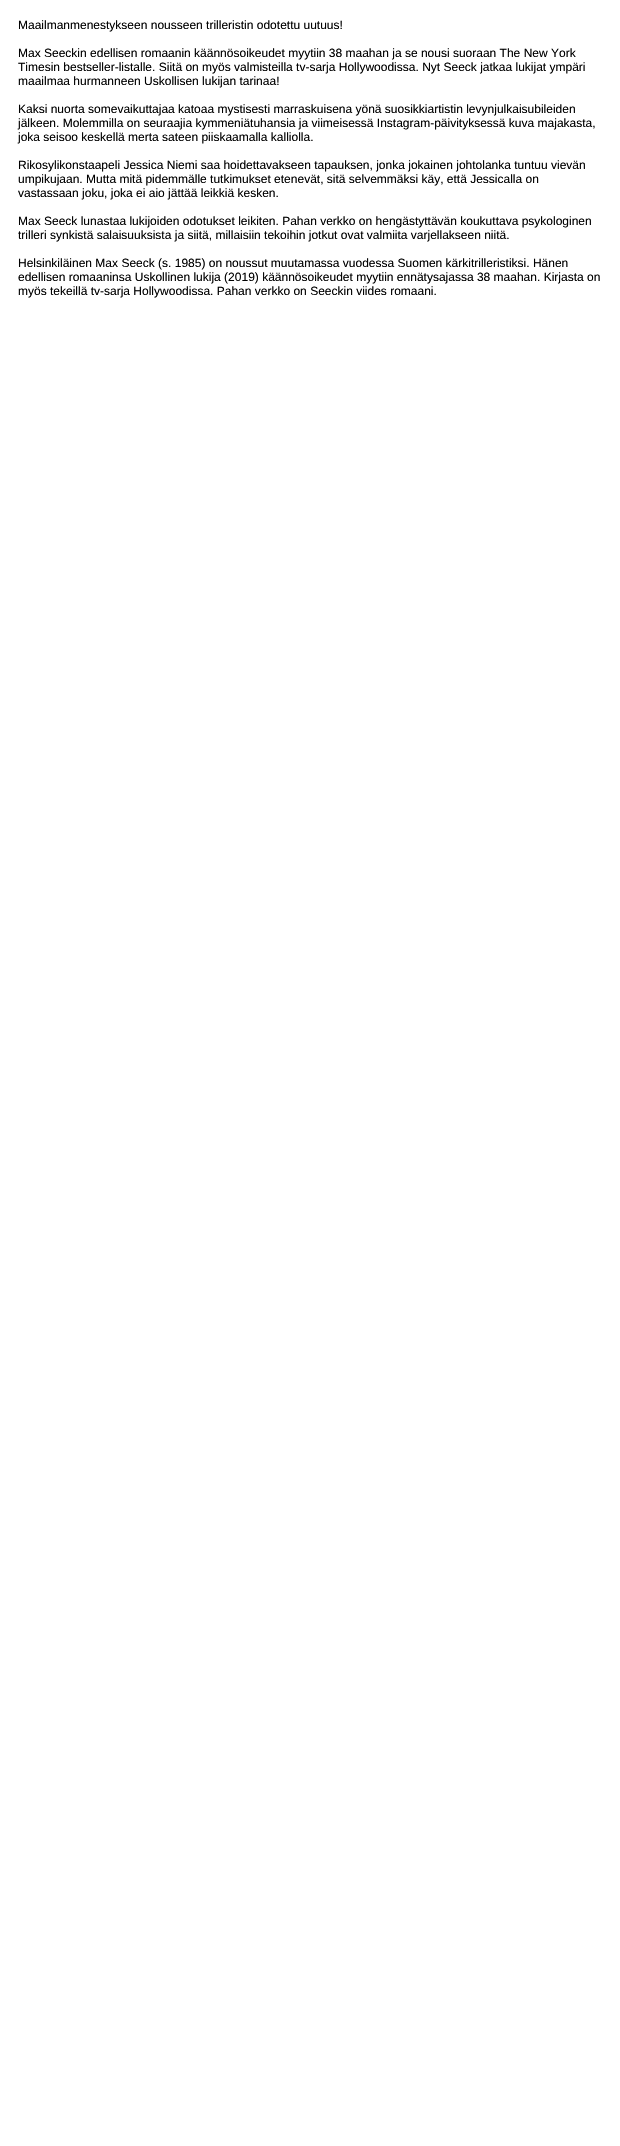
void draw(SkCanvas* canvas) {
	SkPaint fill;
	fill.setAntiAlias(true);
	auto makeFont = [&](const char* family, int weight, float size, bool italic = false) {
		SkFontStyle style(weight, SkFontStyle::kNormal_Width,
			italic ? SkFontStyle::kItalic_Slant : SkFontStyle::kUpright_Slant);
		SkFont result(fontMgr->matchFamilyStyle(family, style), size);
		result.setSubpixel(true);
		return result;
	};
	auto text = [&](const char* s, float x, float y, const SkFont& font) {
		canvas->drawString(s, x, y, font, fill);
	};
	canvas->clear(0xFFFFFFFF);
	auto font1 = makeFont("Liberation Sans", 400, 12);
	fill.setColor(0xFF000000);
	text("Maailmanmenestykseen nousseen trilleristin odotettu uutuus!", 18, 29, font1);
	text("Max Seeckin edellisen romaanin käännösoikeudet myytiin 38 maahan ja se nousi suoraan The New York", 18, 57, font1);
	text("Timesin bestseller-listalle. Siitä on myös valmisteilla tv-sarja Hollywoodissa. Nyt Seeck jatkaa lukijat ympäri", 18, 71, font1);
	text("maailmaa hurmanneen Uskollisen lukijan tarinaa!", 18, 85, font1);
	text("Kaksi nuorta somevaikuttajaa katoaa mystisesti marraskuisena yönä suosikkiartistin levynjulkaisubileiden", 18, 113, font1);
	text("jälkeen. Molemmilla on seuraajia kymmeniätuhansia ja viimeisessä Instagram-päivityksessä kuva majakasta,", 18, 127, font1);
	text("joka seisoo keskellä merta sateen piiskaamalla kalliolla.", 18, 141, font1);
	text("Rikosylikonstaapeli Jessica Niemi saa hoidettavakseen tapauksen, jonka jokainen johtolanka tuntuu vievän", 18, 169, font1);
	text("umpikujaan. Mutta mitä pidemmälle tutkimukset etenevät, sitä selvemmäksi käy, että Jessicalla on", 18, 183, font1);
	text("vastassaan joku, joka ei aio jättää leikkiä kesken.", 18, 197, font1);
	text("Max Seeck lunastaa lukijoiden odotukset leikiten. Pahan verkko on hengästyttävän koukuttava psykologinen", 18, 225, font1);
	text("trilleri synkistä salaisuuksista ja siitä, millaisiin tekoihin jotkut ovat valmiita varjellakseen niitä.", 18, 239, font1);
	text("Helsinkiläinen Max Seeck (s. 1985) on noussut muutamassa vuodessa Suomen kärkitrilleristiksi. Hänen", 18, 267, font1);
	text("edellisen romaaninsa Uskollinen lukija (2019) käännösoikeudet myytiin ennätysajassa 38 maahan. Kirjasta on", 18, 281, font1);
	text("myös tekeillä tv-sarja Hollywoodissa. Pahan verkko on Seeckin viides romaani.", 18, 295, font1);
}
